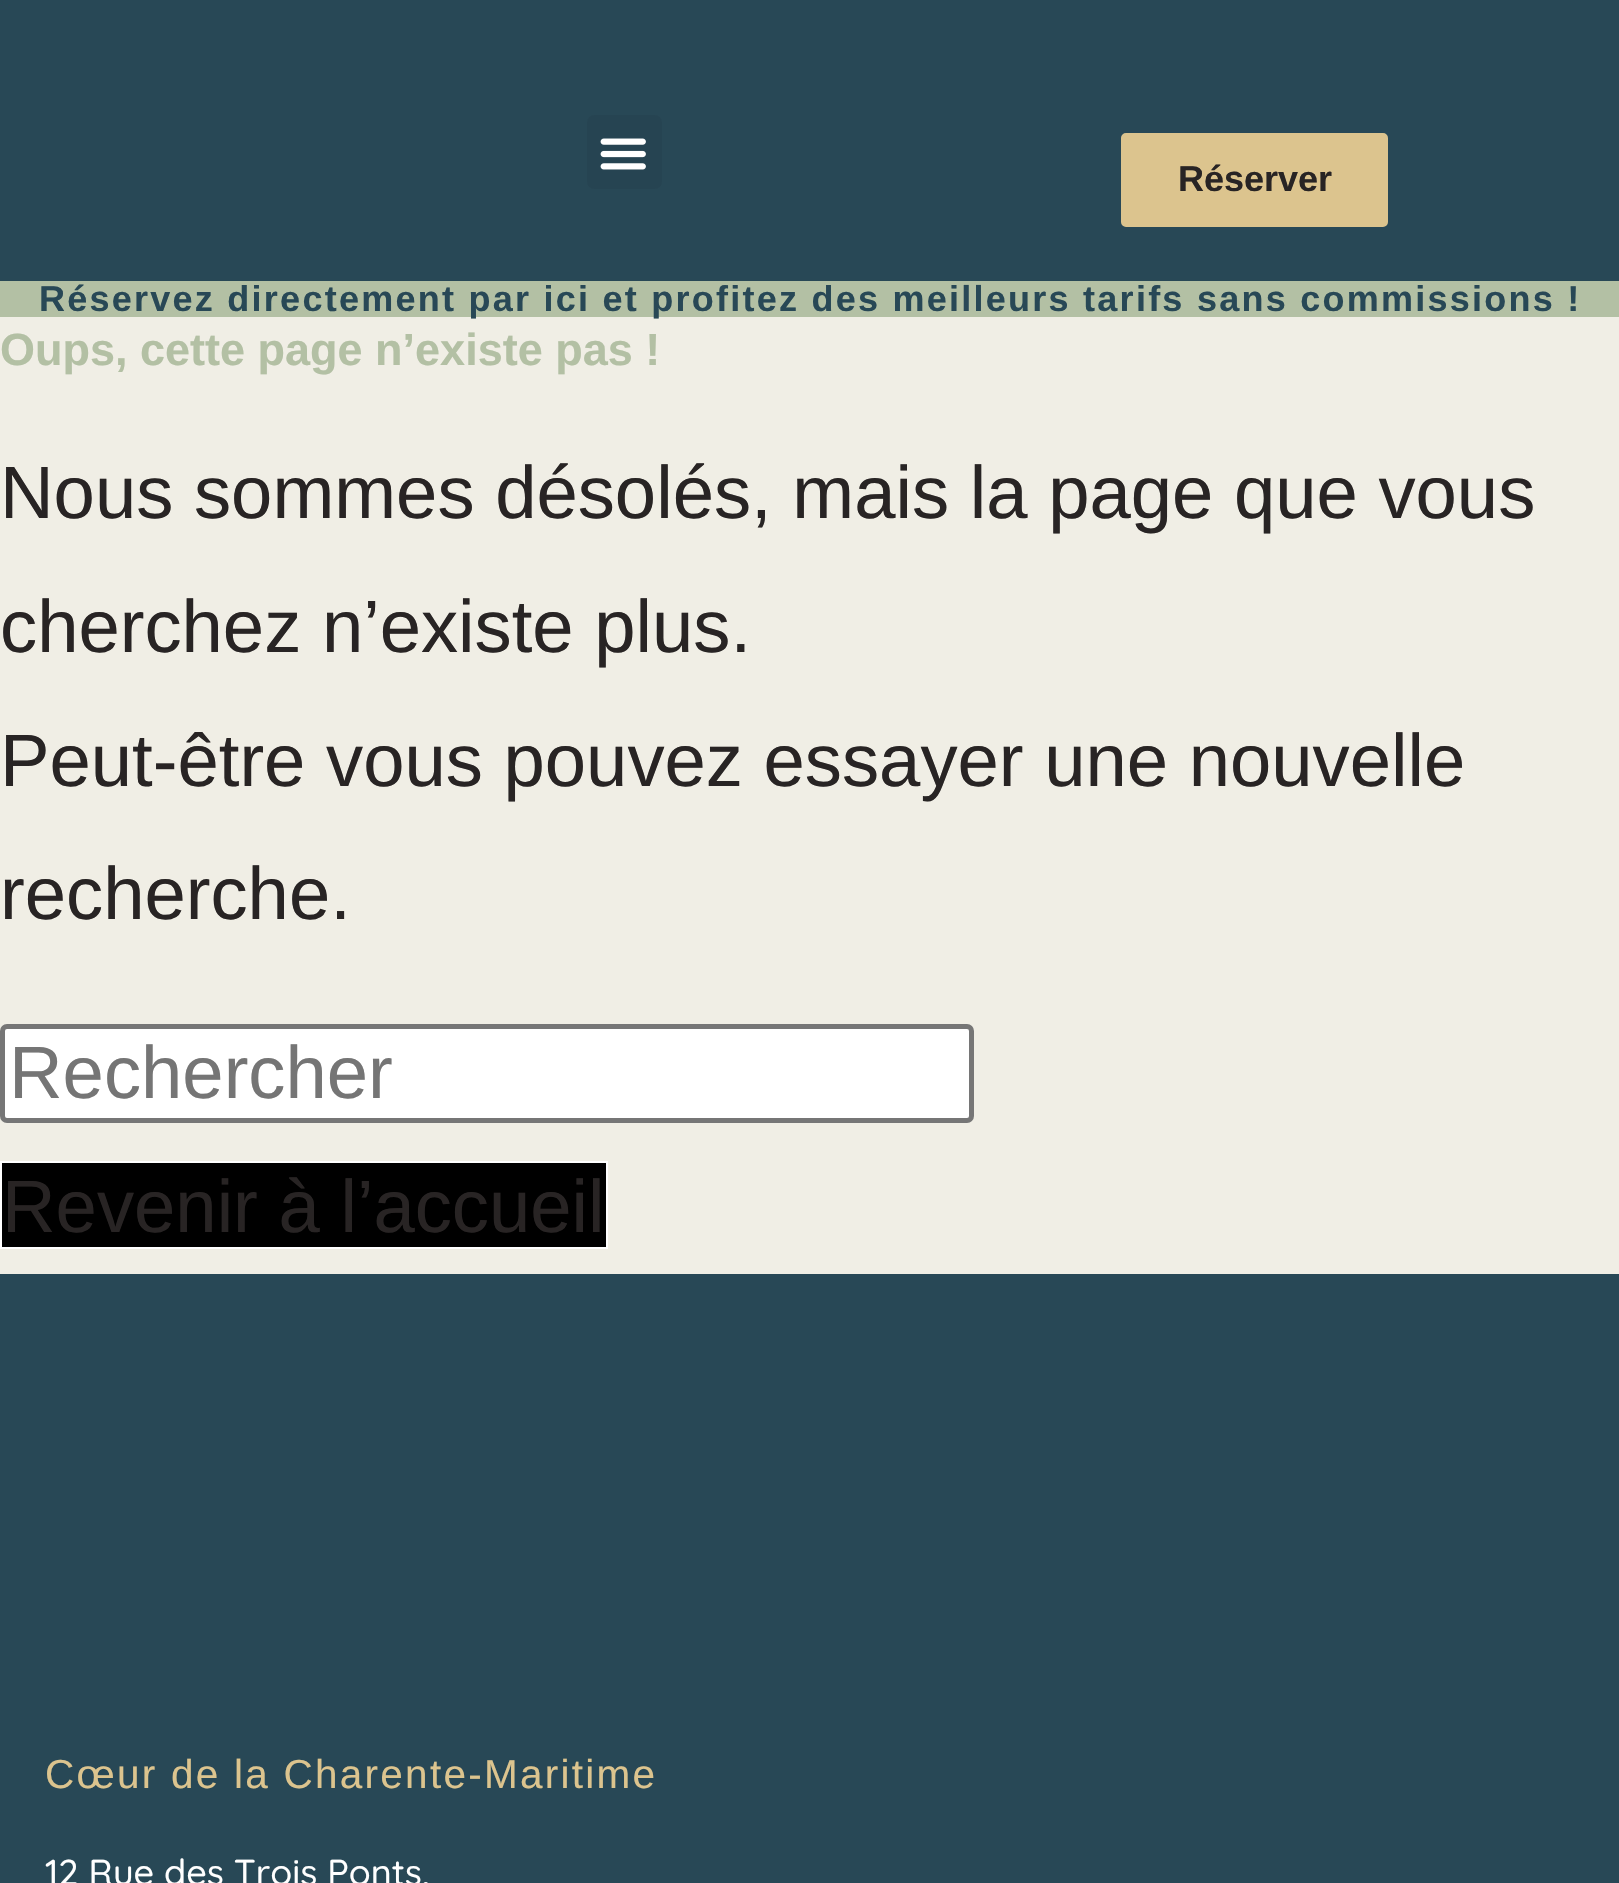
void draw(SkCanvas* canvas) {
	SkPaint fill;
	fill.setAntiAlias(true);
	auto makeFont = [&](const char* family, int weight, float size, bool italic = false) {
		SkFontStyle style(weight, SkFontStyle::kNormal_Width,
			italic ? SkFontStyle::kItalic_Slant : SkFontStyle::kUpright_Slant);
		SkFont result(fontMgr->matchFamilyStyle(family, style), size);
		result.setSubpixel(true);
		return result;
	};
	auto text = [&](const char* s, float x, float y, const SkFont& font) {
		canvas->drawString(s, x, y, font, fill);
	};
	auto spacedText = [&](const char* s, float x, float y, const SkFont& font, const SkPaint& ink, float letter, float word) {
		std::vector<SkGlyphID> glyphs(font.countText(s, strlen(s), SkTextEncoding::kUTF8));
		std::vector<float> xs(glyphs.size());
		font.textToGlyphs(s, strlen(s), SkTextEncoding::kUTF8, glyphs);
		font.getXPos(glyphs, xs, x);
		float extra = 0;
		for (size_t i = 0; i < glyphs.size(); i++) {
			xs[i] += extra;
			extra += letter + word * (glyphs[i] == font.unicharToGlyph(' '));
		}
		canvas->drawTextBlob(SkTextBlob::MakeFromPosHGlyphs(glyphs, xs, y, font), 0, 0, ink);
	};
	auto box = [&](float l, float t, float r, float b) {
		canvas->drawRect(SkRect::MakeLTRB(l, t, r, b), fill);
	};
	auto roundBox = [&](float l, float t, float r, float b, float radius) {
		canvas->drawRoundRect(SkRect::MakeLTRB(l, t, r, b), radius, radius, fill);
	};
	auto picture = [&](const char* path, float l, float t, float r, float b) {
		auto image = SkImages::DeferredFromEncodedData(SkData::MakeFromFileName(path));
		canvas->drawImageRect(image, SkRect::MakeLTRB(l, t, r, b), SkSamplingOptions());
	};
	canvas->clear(0xFFF0EEE5);
	fill.setColor(0xFF284856);
	box(0, 0, 1619, 281);
	fill.setColor(0xFF264452);
	roundBox(587, 115, 662, 189, 7);
	picture("image0.png", 600, 138, 646, 170);
	fill.setColor(0xFFDCC48E);
	canvas->drawRoundRect(SkRect::MakeLTRB(1122, 134, 1387, 226), 4, 4, fill);
	fill.setStyle(SkPaint::kStroke_Style);
	fill.setStrokeWidth(2);
	canvas->drawRoundRect(SkRect::MakeLTRB(1122, 134, 1387, 226), 4, 4, fill);
	fill.setStyle(SkPaint::kFill_Style);
	fill.setColor(0xFFB3C0A4);
	box(0, 281, 1619, 317);
	fill.setColor(0xFFFFFFFF);
	canvas->drawRoundRect(SkRect::MakeLTRB(2.5f, 1026.5f, 971.5f, 1120.5f), 4.5f, 4.5f, fill);
	fill.setStyle(SkPaint::kStroke_Style);
	fill.setStrokeWidth(5);
	fill.setColor(0xFF767676);
	canvas->drawRoundRect(SkRect::MakeLTRB(2.5f, 1026.5f, 971.5f, 1120.5f), 4.5f, 4.5f, fill);
	fill.setStyle(SkPaint::kFill_Style);
	fill.setColor(0xFF000000);
	canvas->drawRect(SkRect::MakeLTRB(1, 1162, 607, 1248), fill);
	fill.setStyle(SkPaint::kStroke_Style);
	fill.setStrokeWidth(2);
	fill.setColor(0xFFFFFFFF);
	canvas->drawRect(SkRect::MakeLTRB(1, 1162, 607, 1248), fill);
	fill.setStyle(SkPaint::kFill_Style);
	fill.setColor(0xFF284856);
	box(0, 1274, 1619, 1883);
	auto font1 = makeFont("Liberation Sans", 700, 36);
	fill.setColor(0xFF282424);
	text("Réserver", 1178, 191, font1);
	fill.setColor(0xFF284856);
	spacedText("Réservez directement par ici et profitez des meilleurs tarifs sans commissions !", 39, 311, font1, fill, 2.25f, 0);
	auto font2 = makeFont("Liberation Sans", 700, 45);
	fill.setColor(0xFFB3C0A4);
	text("Oups, cette page n’existe pas !", 0, 365, font2);
	auto font3 = makeFont("Liberation Sans", 400, 74.25f);
	fill.setColor(0xFF282424);
	text("Nous sommes désolés, mais la page que vous", 0, 518, font3);
	text("cherchez n’existe plus.", 0, 652, font3);
	text("Peut-être vous pouvez essayer une nouvelle", 0, 786, font3);
	text("recherche.", 0, 919, font3);
	fill.setColor(0xFF757575);
	text("Rechercher", 9, 1098, font3);
	fill.setColor(0xFF282424);
	text("Revenir à l’accueil", 2, 1232, font3);
	auto font4 = makeFont("Liberation Sans", 400, 40.5f);
	fill.setColor(0xFFDCC48E);
	spacedText("Cœur de la Charente-Maritime", 45, 1788, font4, fill, 2.25f, 0);
	auto font5 = makeFont("Quicksand", 500, 36);
	fill.setColor(0xFFFFFFFF);
	text("12 Rue des Trois Ponts,", 45, 1885, font5);
}
